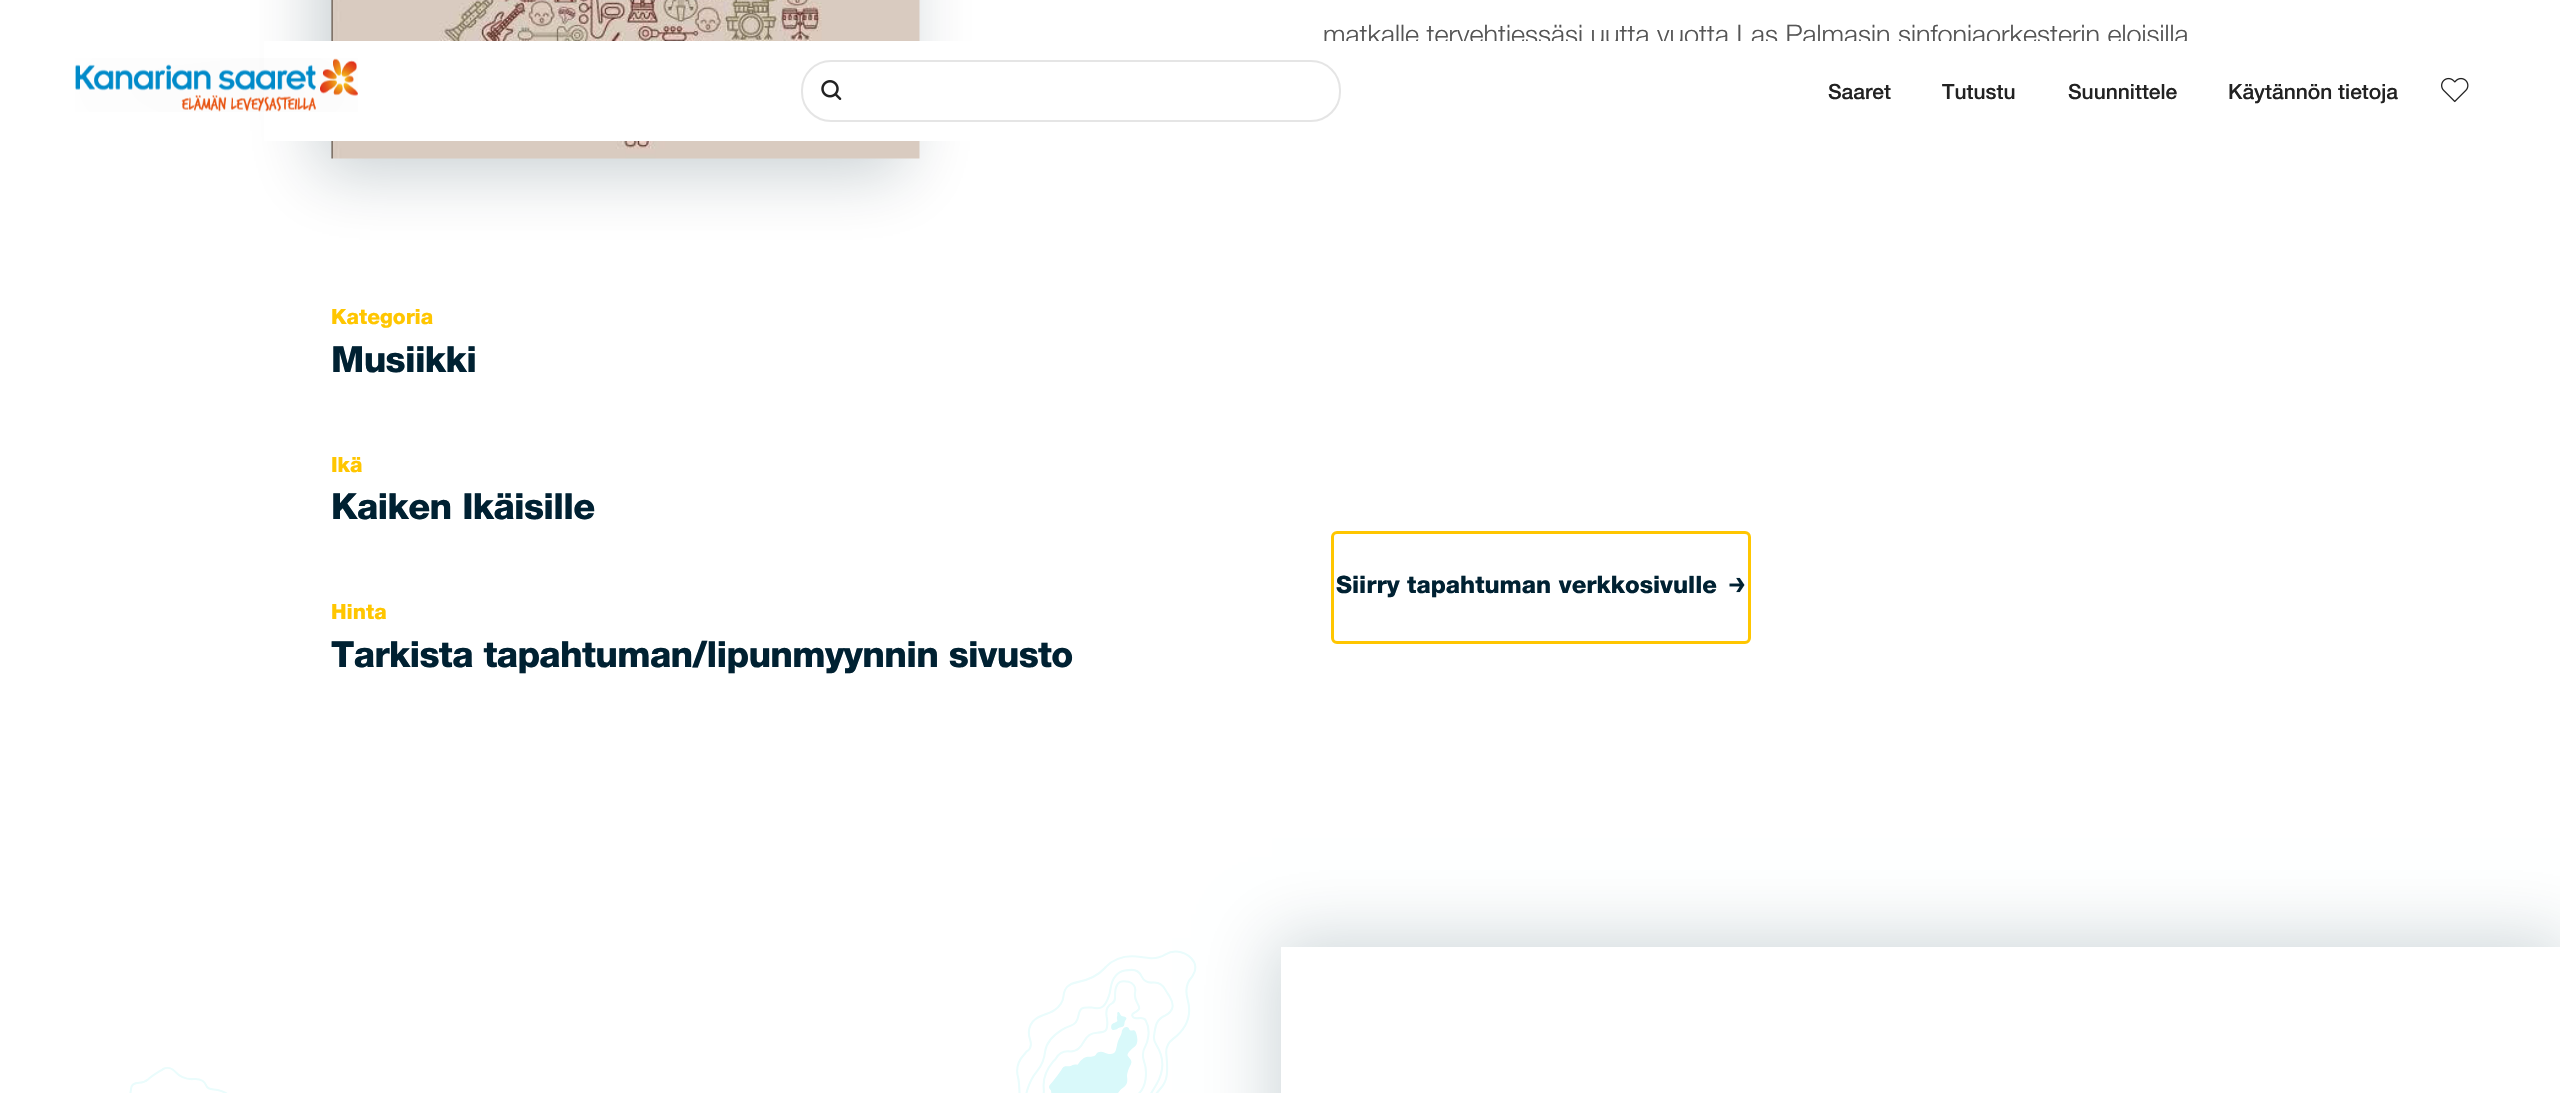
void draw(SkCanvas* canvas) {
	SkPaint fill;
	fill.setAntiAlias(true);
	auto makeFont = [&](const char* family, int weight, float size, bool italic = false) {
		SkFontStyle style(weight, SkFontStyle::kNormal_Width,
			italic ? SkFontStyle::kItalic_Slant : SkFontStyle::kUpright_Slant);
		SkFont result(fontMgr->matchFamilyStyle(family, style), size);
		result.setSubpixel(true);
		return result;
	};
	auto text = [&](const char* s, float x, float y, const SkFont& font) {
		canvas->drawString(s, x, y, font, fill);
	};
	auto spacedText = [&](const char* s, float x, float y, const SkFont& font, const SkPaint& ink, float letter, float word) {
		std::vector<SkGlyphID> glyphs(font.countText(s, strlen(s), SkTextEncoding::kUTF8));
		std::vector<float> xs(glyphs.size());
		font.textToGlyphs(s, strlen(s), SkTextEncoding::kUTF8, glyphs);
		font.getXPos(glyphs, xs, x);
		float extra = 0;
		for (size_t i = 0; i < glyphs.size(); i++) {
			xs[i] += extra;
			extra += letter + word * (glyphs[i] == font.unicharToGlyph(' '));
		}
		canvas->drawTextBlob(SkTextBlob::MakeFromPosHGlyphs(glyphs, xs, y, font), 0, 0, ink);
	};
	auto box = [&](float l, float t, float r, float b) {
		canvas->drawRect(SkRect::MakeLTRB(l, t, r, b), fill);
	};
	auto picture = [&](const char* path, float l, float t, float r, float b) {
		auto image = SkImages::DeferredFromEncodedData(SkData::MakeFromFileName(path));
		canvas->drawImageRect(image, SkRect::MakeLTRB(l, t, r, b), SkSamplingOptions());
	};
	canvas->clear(0xFFFFFFFF);
	fill.setColor(0x38032433);
	fill.setMaskFilter(SkMaskFilter::MakeBlur(kNormal_SkBlurStyle, 32));
	canvas->drawRect(SkRect::MakeLTRB(317, -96, 905, 173), fill);
	fill.setMaskFilter(nullptr);
	picture("image0.png", 331, 0, 920, 159);
	fill.setStyle(SkPaint::kStroke_Style);
	fill.setStrokeWidth(3);
	fill.setColor(0xFFFFC600);
	canvas->drawRoundRect(SkRect::MakeLTRB(1332.5f, 532.5f, 1749.5f, 642.5f), 4.5f, 4.5f, fill);
	picture("image1.png", 1729, 577, 1745, 593);
	picture("image2.png", 129, 950, 1197, 1093);
	canvas->save();
	canvas->clipPath(SkPathBuilder(SkPathFillType::kEvenOdd).moveTo(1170, 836).lineTo(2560, 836).lineTo(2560, 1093).lineTo(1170, 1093).close().moveTo(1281, 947).lineTo(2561, 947).lineTo(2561, 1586).lineTo(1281, 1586).close().detach(), true);
	fill.setStyle(SkPaint::kFill_Style);
	fill.setColor(0x3000283A);
	fill.setMaskFilter(SkMaskFilter::MakeBlur(kNormal_SkBlurStyle, 33.5f));
	canvas->drawRect(SkRect::MakeLTRB(1272, 938, 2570, 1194), fill);
	fill.setMaskFilter(nullptr);
	canvas->restore();
	picture("image5.png", 2441, 77, 2469, 103);
	auto font1 = makeFont("Helvetica Neue", 300, 27);
	fill.setColor(0xFF555555);
	text("matkalle tervehtiessäsi uutta vuotta Las Palmasin sinfoniaorkesterin eloisilla", 1323, 44, font1);
	auto font2 = makeFont("Helvetica Neue", 700, 21);
	fill.setColor(0xFFFFC600);
	text("Kategoria", 331, 324, font2);
	auto font3 = makeFont("Helvetica Neue", 700, 36);
	fill.setColor(0xFF002132);
	spacedText("Musiikki", 331, 372, font3, fill, -0.7f, 0);
	fill.setColor(0xFFFFC600);
	text("Ikä", 331, 472, font2);
	fill.setColor(0xFF002132);
	spacedText("Kaiken Ikäisille", 331, 519, font3, fill, -0.7f, 0);
	fill.setColor(0xFFFFC600);
	text("Hinta", 331, 619, font2);
	fill.setColor(0xFF002132);
	spacedText("Tarkista tapahtuman/lipunmyynnin sivusto", 331, 667, font3, fill, -0.7f, 0);
	auto font4 = makeFont("Helvetica Neue", 700, 24);
	text("Siirry tapahtuman verkkosivulle", 1336, 593, font4);
	fill.setColor(0xFFFFFFFF);
	box(264, 41, 2189, 141);
	picture("image3.png", 75, 58, 358, 112);
	fill.setStyle(SkPaint::kStroke_Style);
	fill.setStrokeWidth(2);
	fill.setColor(0xFFE5E5E5);
	canvas->drawRoundRect(SkRect::MakeLTRB(802, 61, 1340, 121), 29, 29, fill);
	picture("image4.png", 821, 80, 842, 100);
	auto font5 = makeFont("Helvetica Neue", 500, 21);
	fill.setStyle(SkPaint::kFill_Style);
	fill.setColor(0xFF222222);
	text("Saaret", 1828, 99, font5);
	text("Tutustu", 1942, 99, font5);
	text("Suunnittele", 2068, 99, font5);
	text("Käytännön tietoja", 2228, 99, font5);
}
